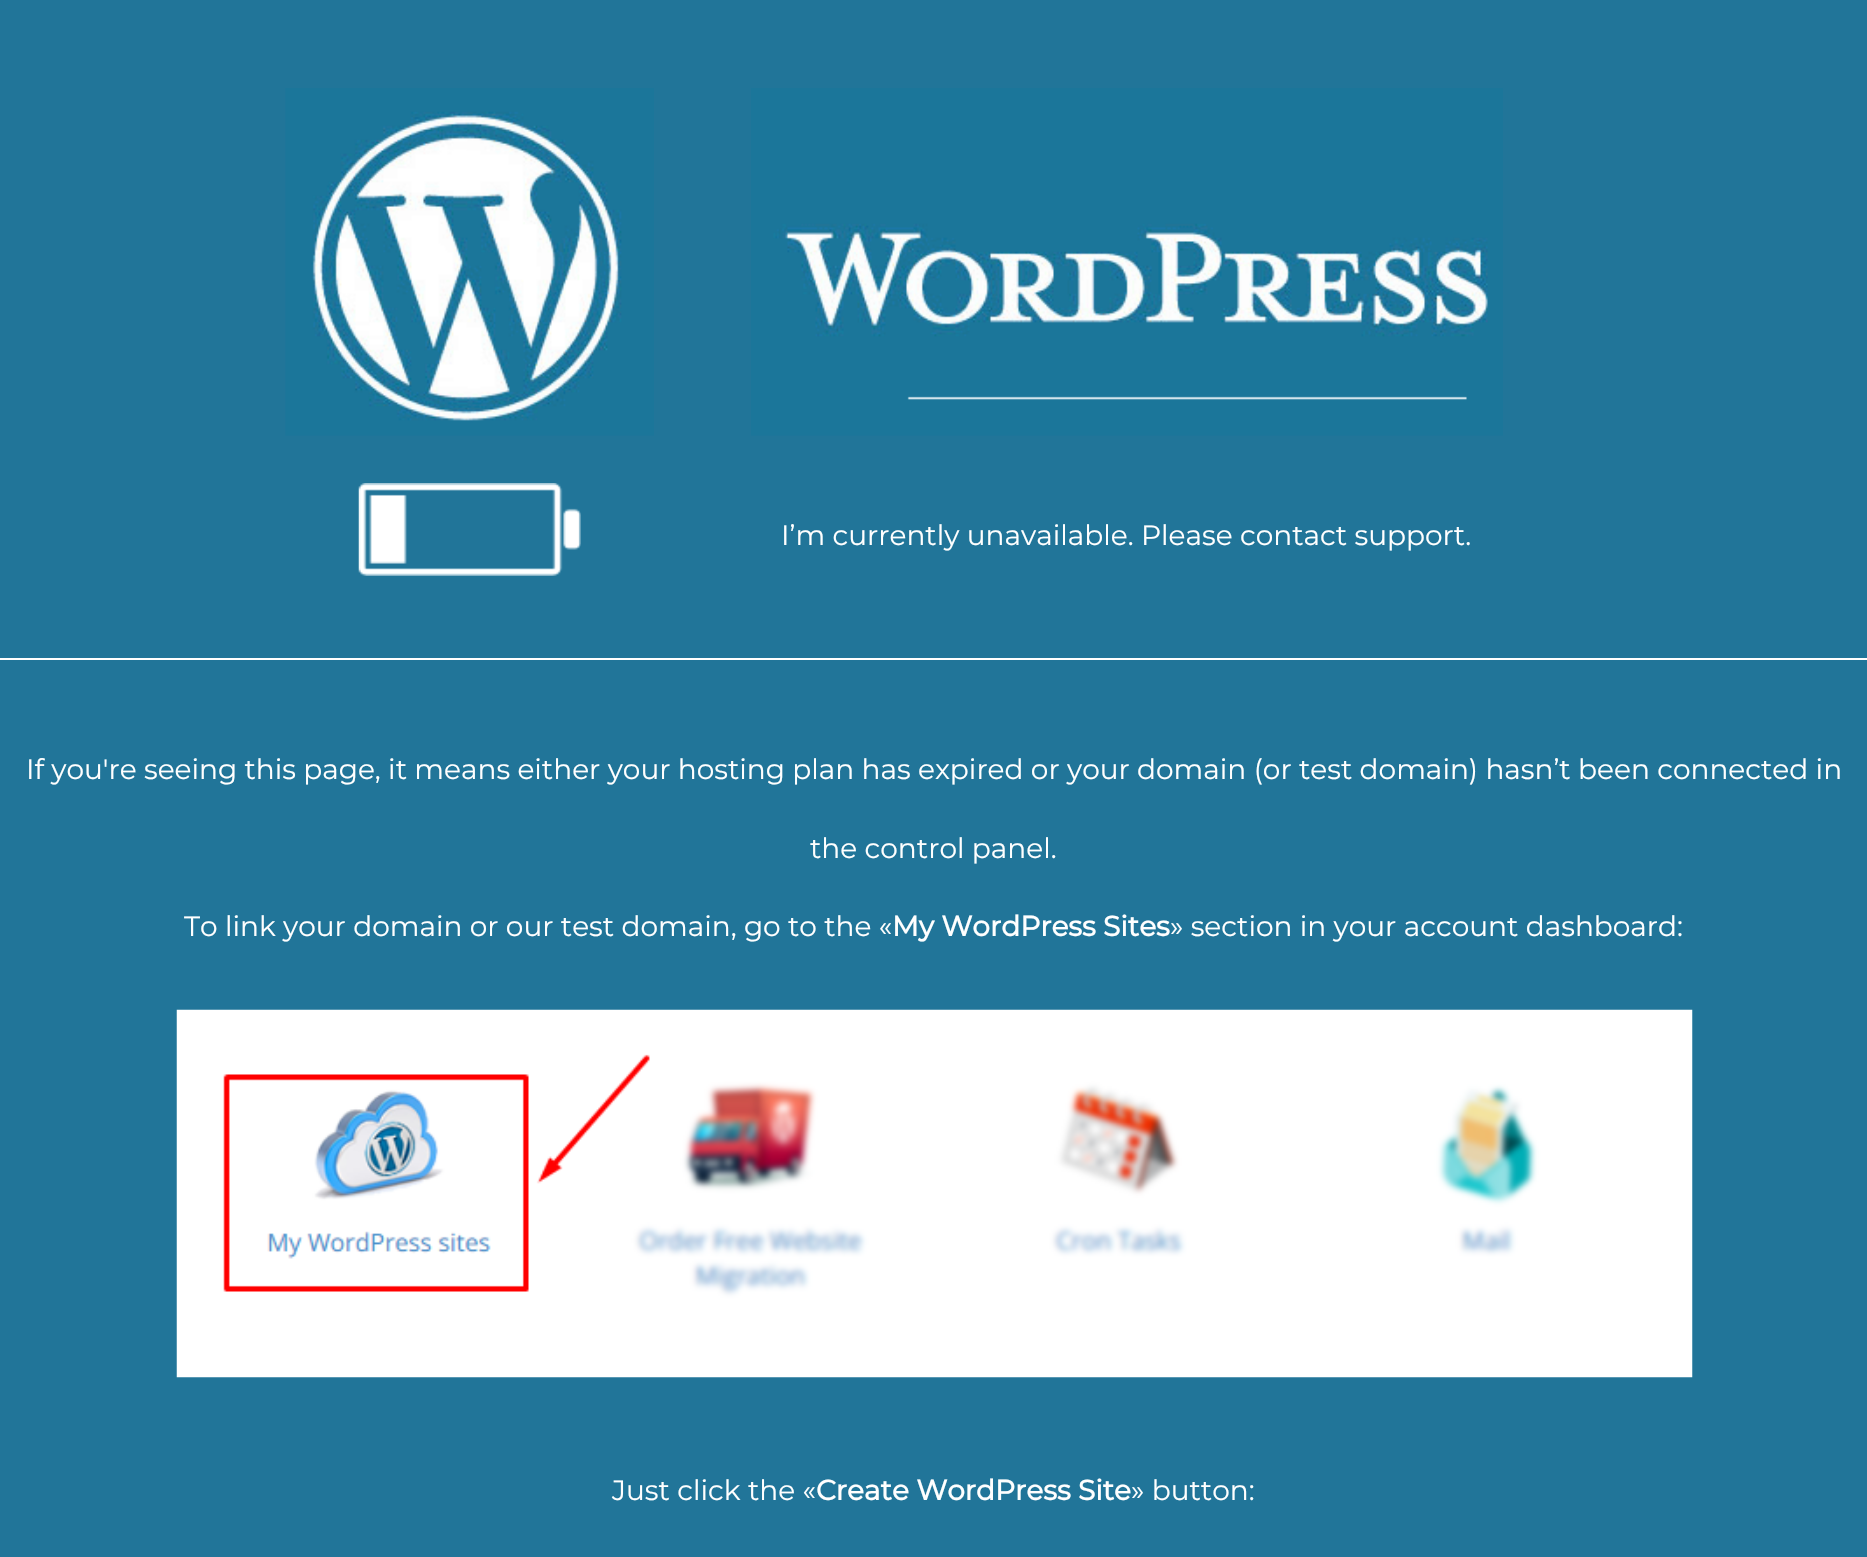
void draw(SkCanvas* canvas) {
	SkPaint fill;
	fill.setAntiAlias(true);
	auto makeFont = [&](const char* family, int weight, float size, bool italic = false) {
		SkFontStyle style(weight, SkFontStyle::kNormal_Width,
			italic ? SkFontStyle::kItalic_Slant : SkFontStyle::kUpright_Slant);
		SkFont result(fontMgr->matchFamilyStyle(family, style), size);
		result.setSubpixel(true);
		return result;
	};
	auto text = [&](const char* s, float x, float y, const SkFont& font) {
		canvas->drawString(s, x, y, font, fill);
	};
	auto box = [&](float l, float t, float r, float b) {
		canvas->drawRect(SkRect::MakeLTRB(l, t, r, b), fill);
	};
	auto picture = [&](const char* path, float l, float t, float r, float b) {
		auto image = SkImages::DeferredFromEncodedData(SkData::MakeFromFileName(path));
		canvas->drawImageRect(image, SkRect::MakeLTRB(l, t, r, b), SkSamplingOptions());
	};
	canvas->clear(0xFF217599);
	picture("image0.png", 285, 88, 654, 436);
	picture("image1.png", 751, 88, 1503, 436);
	picture("image2.png", 358, 483, 581, 576);
	fill.setColor(0xFFFFFFFF);
	box(0, 658, 1867, 660);
	picture("image3.png", 176, 1009, 1693, 1378);
	auto font1 = makeFont("Montserrat", 100, 28);
	text("I’m currently unavailable. Please contact support.", 781, 545, font1);
	text("If you're seeing this page, it means either your hosting plan has expired or your domain (or test domain) hasn’t been connected in", 26, 779, font1);
	text("the control panel.", 810, 858, font1);
	text("To link your domain or our test domain, go to the «", 184, 936, font1);
	auto font2 = makeFont("Montserrat", 700, 28);
	text("My WordPress Sites", 892, 936, font2);
	text("» section in your account dashboard:", 1170, 936, font1);
	text("Just click the «", 612, 1500, font1);
	text("Create WordPress Site", 816, 1500, font2);
	text("» button:", 1131, 1500, font1);
}
